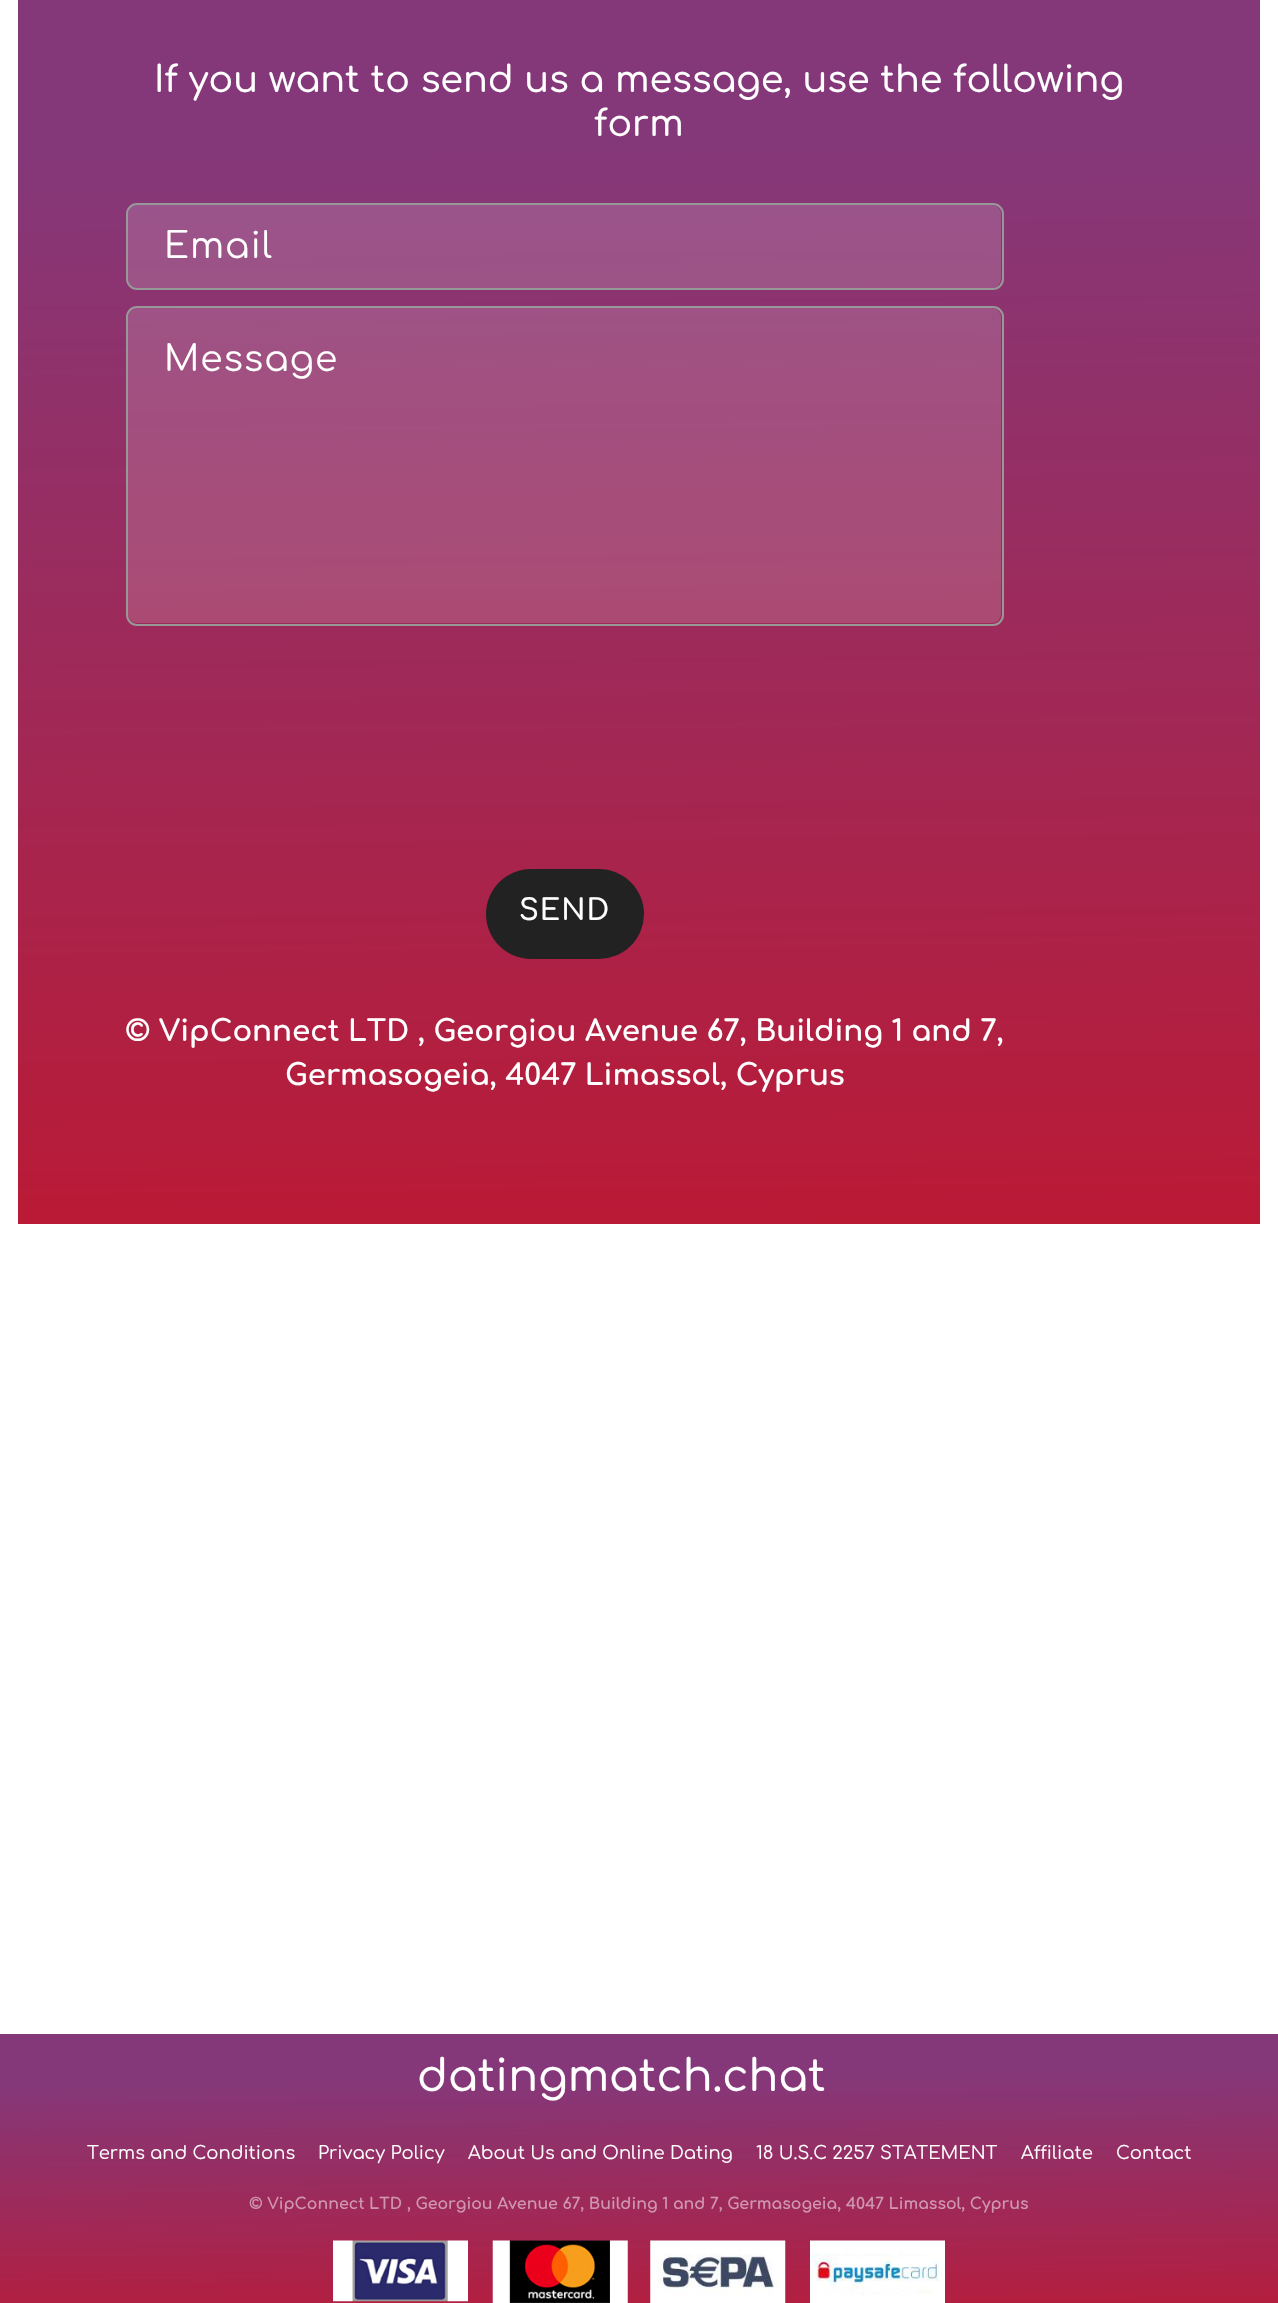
void draw(SkCanvas* canvas) {
	SkPaint fill;
	fill.setAntiAlias(true);
	auto makeFont = [&](const char* family, int weight, float size, bool italic = false) {
		SkFontStyle style(weight, SkFontStyle::kNormal_Width,
			italic ? SkFontStyle::kItalic_Slant : SkFontStyle::kUpright_Slant);
		SkFont result(fontMgr->matchFamilyStyle(family, style), size);
		result.setSubpixel(true);
		return result;
	};
	auto text = [&](const char* s, float x, float y, const SkFont& font) {
		canvas->drawString(s, x, y, font, fill);
	};
	auto spacedText = [&](const char* s, float x, float y, const SkFont& font, const SkPaint& ink, float letter, float word) {
		std::vector<SkGlyphID> glyphs(font.countText(s, strlen(s), SkTextEncoding::kUTF8));
		std::vector<float> xs(glyphs.size());
		font.textToGlyphs(s, strlen(s), SkTextEncoding::kUTF8, glyphs);
		font.getXPos(glyphs, xs, x);
		float extra = 0;
		for (size_t i = 0; i < glyphs.size(); i++) {
			xs[i] += extra;
			extra += letter + word * (glyphs[i] == font.unicharToGlyph(' '));
		}
		canvas->drawTextBlob(SkTextBlob::MakeFromPosHGlyphs(glyphs, xs, y, font), 0, 0, ink);
	};
	auto box = [&](float l, float t, float r, float b) {
		canvas->drawRect(SkRect::MakeLTRB(l, t, r, b), fill);
	};
	auto roundBox = [&](float l, float t, float r, float b, float radius) {
		canvas->drawRoundRect(SkRect::MakeLTRB(l, t, r, b), radius, radius, fill);
	};
	auto picture = [&](const char* path, float l, float t, float r, float b) {
		auto image = SkImages::DeferredFromEncodedData(SkData::MakeFromFileName(path));
		canvas->drawImageRect(image, SkRect::MakeLTRB(l, t, r, b), SkSamplingOptions());
	};
	canvas->clear(0xFFFFFFFF);
	{
		const SkColor colors[] = {0xFF84387A, 0xFFBE1831};
		const float stops[] = {0.14f, 1};
		const SkPoint ends[] = {{632, -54}, {646, 1291}};
		fill.setShader(SkGradientShader::MakeLinear(ends, colors, stops, 2, SkTileMode::kClamp));
		fill.setAlpha(255);
	}
	box(18, 0, 1260, 1224);
	fill.setShader(nullptr);
	fill.setColor(0x26FFFFFF);
	roundBox(128, 205, 1001, 288, 9);
	fill.setStyle(SkPaint::kStroke_Style);
	fill.setStrokeWidth(2);
	fill.setColor(0xFF989898);
	canvas->drawRoundRect(SkRect::MakeLTRB(127, 204, 1003, 289), 10, 10, fill);
	fill.setStyle(SkPaint::kFill_Style);
	fill.setColor(0x26FFFFFF);
	roundBox(128, 308, 1001, 623, 9);
	fill.setStyle(SkPaint::kStroke_Style);
	fill.setColor(0xFF989898);
	canvas->drawRoundRect(SkRect::MakeLTRB(127, 307, 1003, 625), 10, 10, fill);
	fill.setStyle(SkPaint::kFill_Style);
	fill.setColor(0xFF222222);
	roundBox(486, 869, 644, 959, 45);
	{
		const SkColor colors[] = {0xFF84387A, 0xFFBE1831};
		const float stops[] = {0.14f, 1};
		const SkPoint ends[] = {{637, 2027}, {641, 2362}};
		fill.setShader(SkGradientShader::MakeLinear(ends, colors, stops, 2, SkTileMode::kClamp));
		fill.setAlpha(255);
	}
	box(0, 2034, 1278, 2303);
	picture("image0.png", 333, 2240, 468, 2302);
	picture("image1.png", 492, 2240, 628, 2303);
	picture("image2.png", 650, 2240, 786, 2303);
	picture("image3.png", 810, 2240, 945, 2303);
	auto font1 = makeFont("Comfortaa", 500, 36.55f);
	fill.setShader(nullptr);
	fill.setColor(0xFFFFFFFF);
	text("If you want to send us a message, use the following", 154, 92, font1);
	text("form", 594, 136, font1);
	auto font2 = makeFont("Comfortaa", 400, 36);
	spacedText("Email", 164, 258, font2, fill, 1, 0);
	spacedText("Message", 164, 371, font2, fill, 1, 0);
	auto font3 = makeFont("Comfortaa", 600, 29.25f);
	spacedText("SEND", 519, 920, font3, fill, 1, 0);
	auto font4 = makeFont("Comfortaa", 700, 29.25f);
	text("© VipConnect LTD , Georgiou Avenue 67, Building 1 and 7,", 125, 1041, font4);
	text("Germasogeia, 4047 Limassol, Cyprus", 285, 1085, font4);
	auto font5 = makeFont("Comfortaa", 500, 43.9f);
	text("datingmatch.chat", 417, 2091, font5);
	auto font6 = makeFont("Comfortaa", 400, 18);
	text("Terms and Conditions", 87, 2159, font6);
	text("Privacy Policy", 318, 2159, font6);
	text("About Us and Online Dating", 468, 2159, font6);
	text("18 U.S.C 2257 STATEMENT", 756, 2159, font6);
	text("Affiliate", 1021, 2159, font6);
	text("Contact", 1116, 2159, font6);
	auto font7 = makeFont("Comfortaa", 700, 15.75f);
	fill.setColor(0xFFCF96AE);
	text("© VipConnect LTD", 249, 2209, font7);
	text(", Georgiou Avenue 67, Building 1 and 7, Germasogeia, 4047 Limassol, Cyprus", 407, 2209, font7);
}
